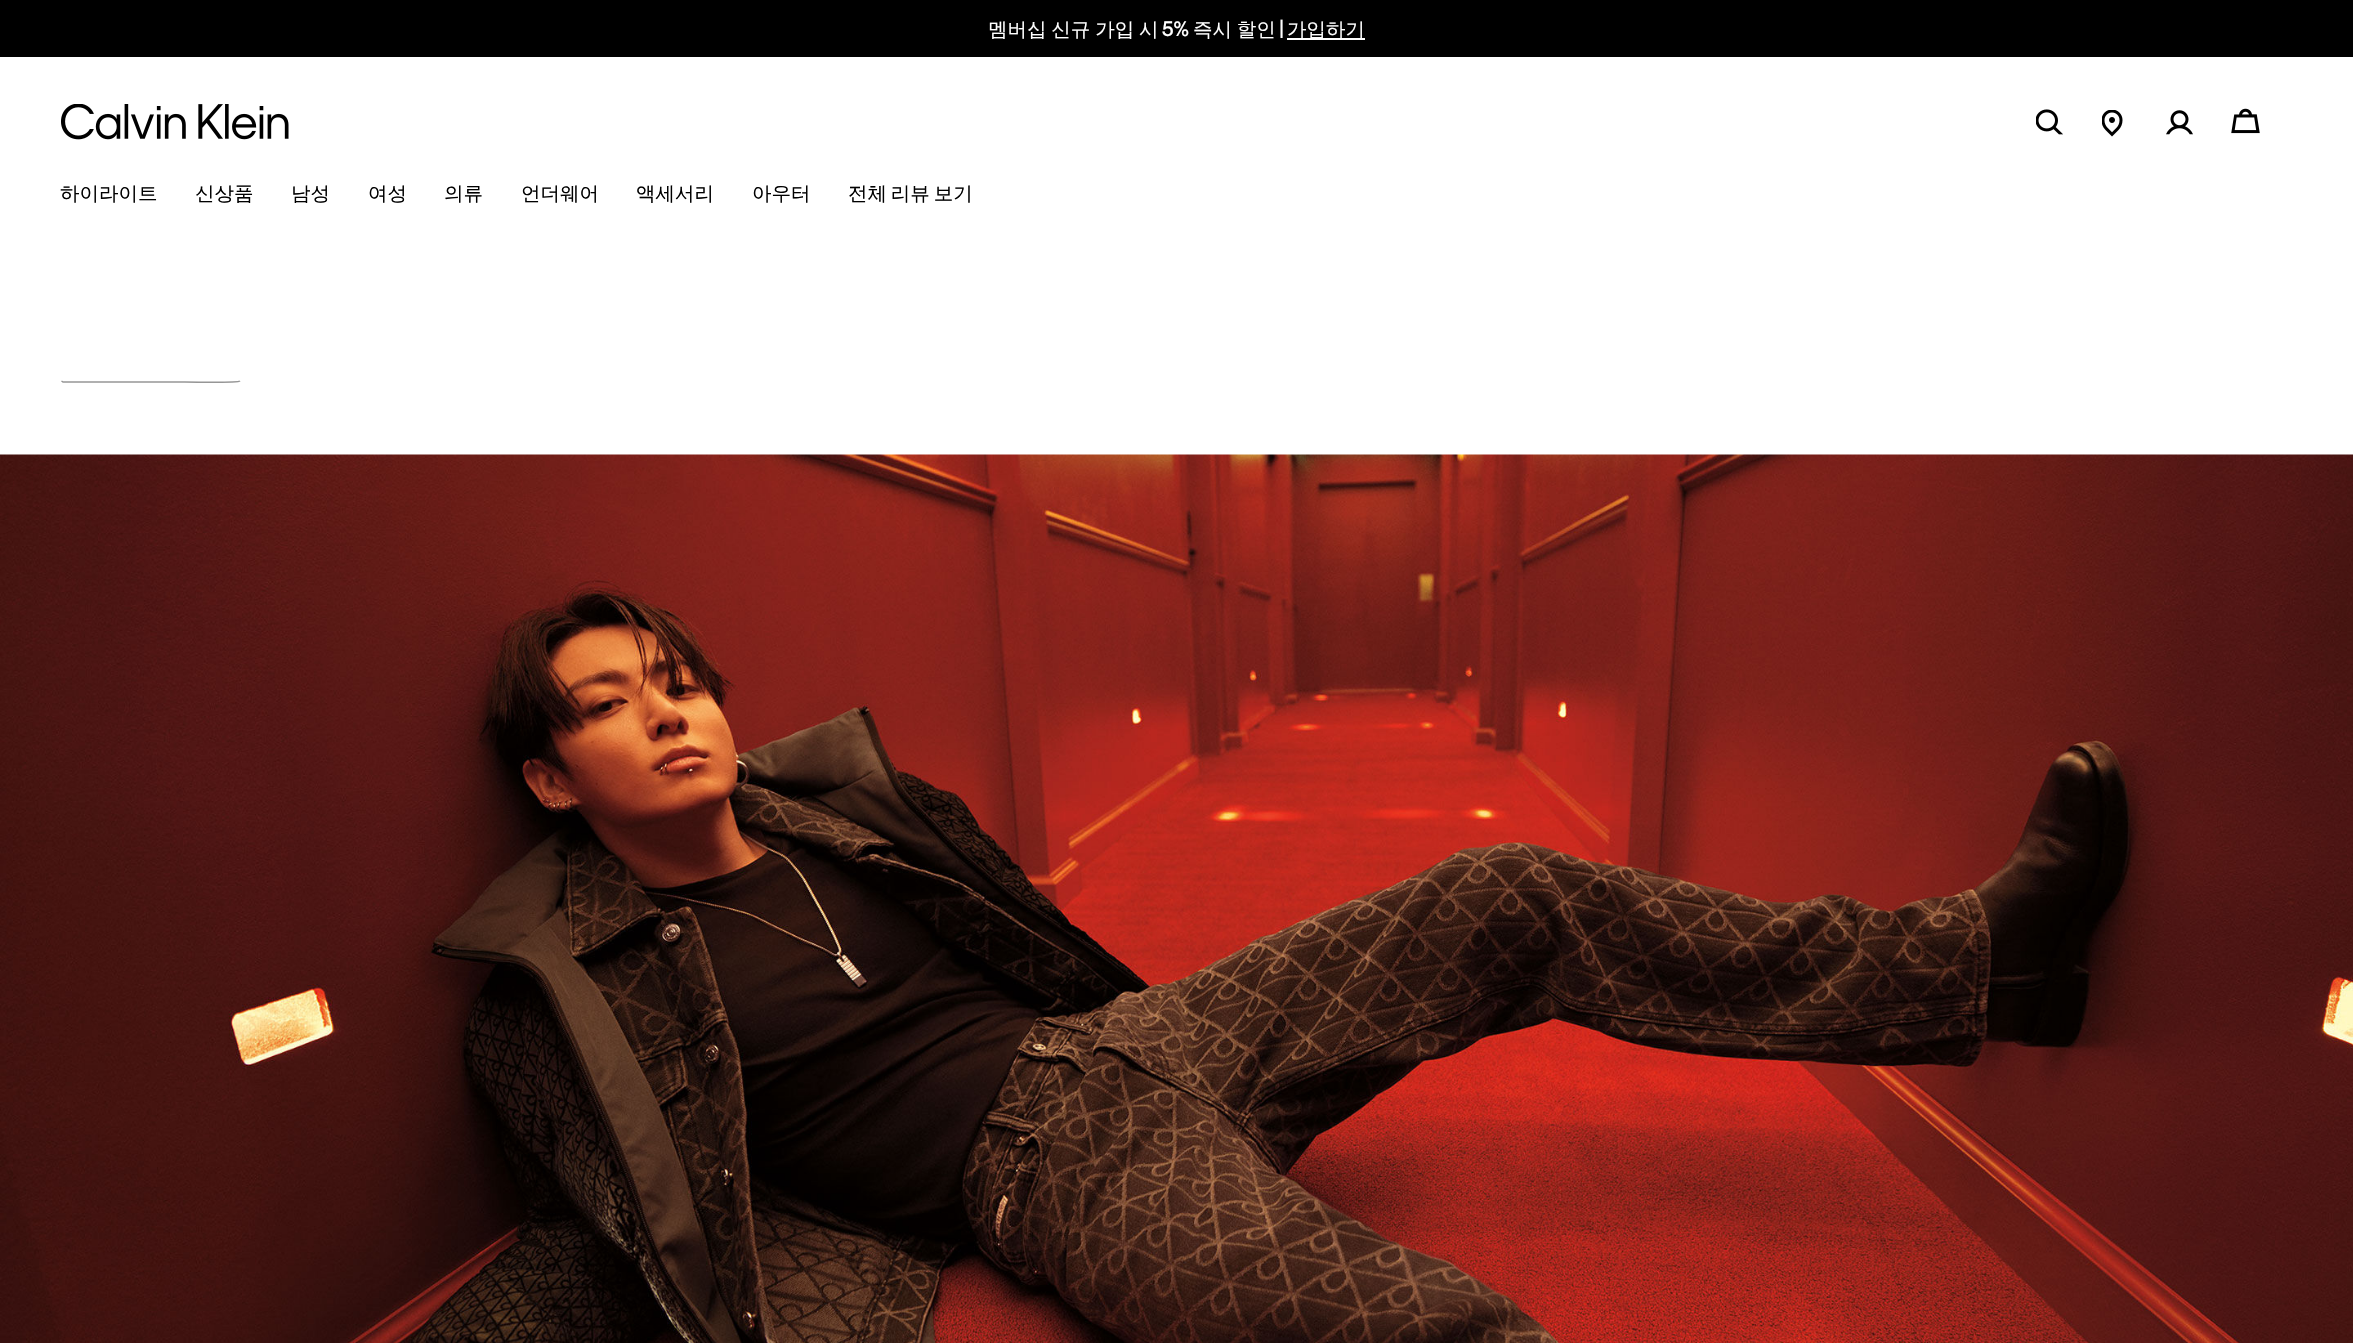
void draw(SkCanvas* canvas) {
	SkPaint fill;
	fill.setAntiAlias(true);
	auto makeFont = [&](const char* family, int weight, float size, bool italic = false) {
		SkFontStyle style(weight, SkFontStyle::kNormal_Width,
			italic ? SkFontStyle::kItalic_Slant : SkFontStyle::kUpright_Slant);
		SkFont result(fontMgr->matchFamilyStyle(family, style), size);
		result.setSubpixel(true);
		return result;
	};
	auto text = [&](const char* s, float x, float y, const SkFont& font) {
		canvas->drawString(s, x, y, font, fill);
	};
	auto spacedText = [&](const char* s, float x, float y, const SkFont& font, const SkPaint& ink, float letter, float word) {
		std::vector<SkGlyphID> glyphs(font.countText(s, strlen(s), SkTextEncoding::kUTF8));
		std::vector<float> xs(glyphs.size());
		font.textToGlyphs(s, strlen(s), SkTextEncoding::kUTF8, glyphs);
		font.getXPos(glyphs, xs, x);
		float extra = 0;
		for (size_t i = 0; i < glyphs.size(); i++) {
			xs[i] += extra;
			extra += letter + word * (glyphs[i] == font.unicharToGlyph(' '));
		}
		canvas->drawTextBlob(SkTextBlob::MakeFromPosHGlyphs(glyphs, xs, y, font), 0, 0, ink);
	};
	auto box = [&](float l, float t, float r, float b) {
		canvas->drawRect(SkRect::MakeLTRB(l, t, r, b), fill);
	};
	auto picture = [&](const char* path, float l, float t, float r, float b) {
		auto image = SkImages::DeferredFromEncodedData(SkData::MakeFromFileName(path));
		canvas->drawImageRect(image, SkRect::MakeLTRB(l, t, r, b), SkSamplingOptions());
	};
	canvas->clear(0xFFFFFFFF);
	fill.setColor(0xFF000000);
	box(0, 0, 2353, 57);
	fill.setColor(0xFFFFFFFF);
	box(1287, 38, 1365, 40);
	picture("image0.png", 61, 104, 289, 140);
	picture("image1.png", 2036, 109, 2063, 135);
	picture("image2.png", 2102, 110, 2123, 137);
	picture("image3.png", 2166, 110, 2193, 135);
	picture("image4.png", 2231, 108, 2260, 134);
	fill.setStyle(SkPaint::kStroke_Style);
	fill.setStrokeWidth(1.5f);
	fill.setColor(0xFF969696);
	canvas->drawPath(SkPathBuilder().moveTo(240, 381).cubicTo(238.5f, 383, 184.5f, 382, 180, 382).lineTo(63, 382).lineTo(61.5f, 381).detach(), fill);
	picture("image5.png", 0, 454, 2353, 1343);
	auto font1 = makeFont("WenQuanYi Zen Hei", 500, 19.5f);
	fill.setStyle(SkPaint::kFill_Style);
	fill.setColor(0xFFFFFFFF);
	spacedText("멤버십 신규 가입 시", 988, 36, font1, fill, 0, -1);
	auto font2 = makeFont("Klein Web", 500, 19.5f);
	text("5%", 1162, 36, font2);
	spacedText("즉시 할인", 1193, 36, font1, fill, 0, -1);
	text("|", 1279, 36, font2);
	text("가입하기", 1287, 36, font1);
	fill.setColor(0xFF000000);
	text("하이라이트", 60, 200, font1);
	text("신상품", 195, 200, font1);
	text("남성", 291, 200, font1);
	text("여성", 368, 200, font1);
	text("의류", 444, 200, font1);
	text("언더웨어", 521, 200, font1);
	text("액세서리", 636, 200, font1);
	text("아우터", 752, 200, font1);
	spacedText("전체 리뷰 보기", 848, 200, font1, fill, 0, -2);
}
